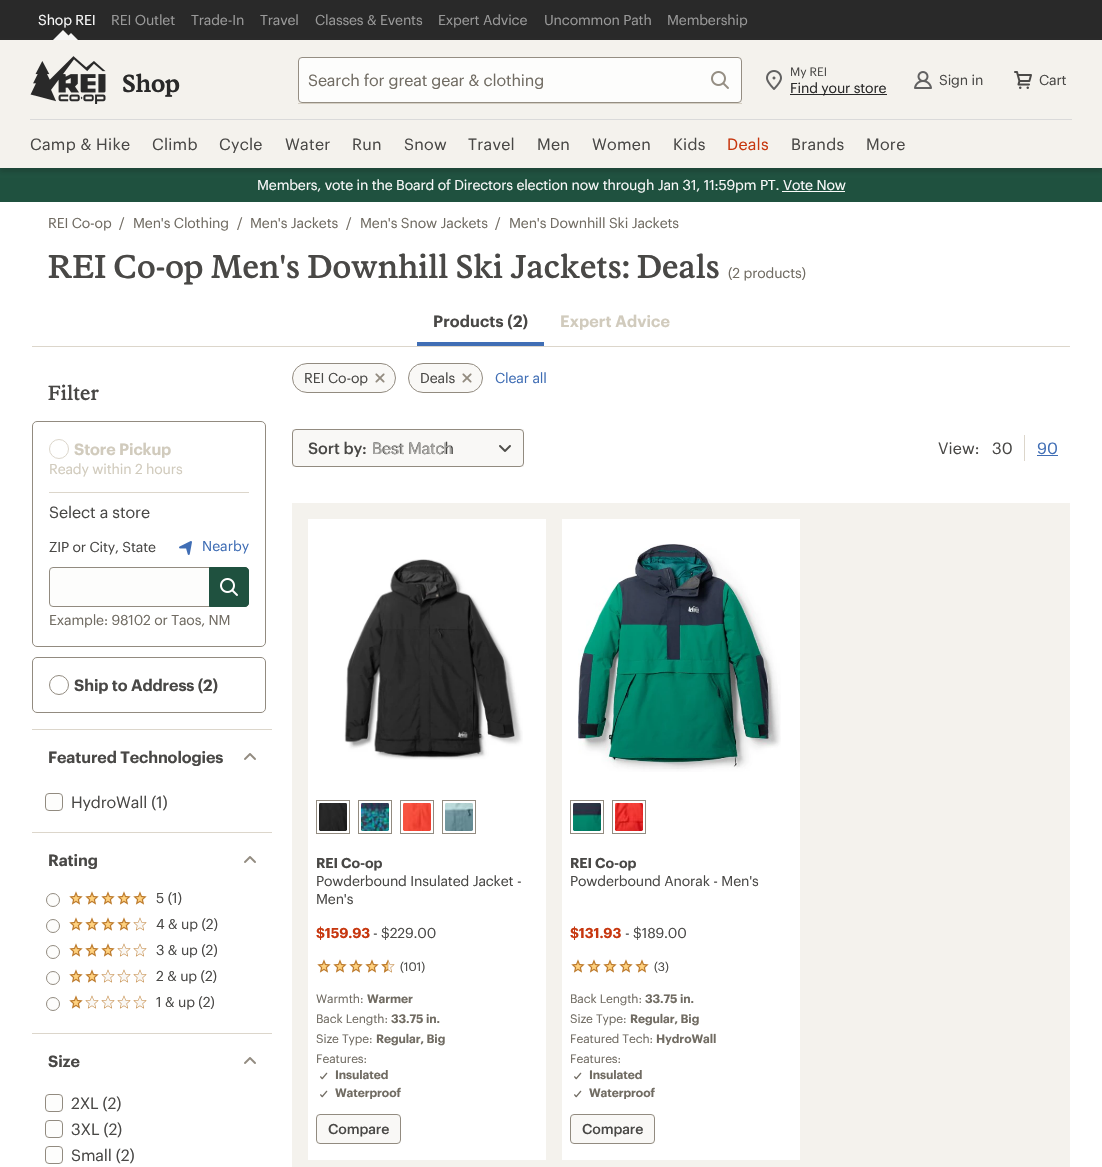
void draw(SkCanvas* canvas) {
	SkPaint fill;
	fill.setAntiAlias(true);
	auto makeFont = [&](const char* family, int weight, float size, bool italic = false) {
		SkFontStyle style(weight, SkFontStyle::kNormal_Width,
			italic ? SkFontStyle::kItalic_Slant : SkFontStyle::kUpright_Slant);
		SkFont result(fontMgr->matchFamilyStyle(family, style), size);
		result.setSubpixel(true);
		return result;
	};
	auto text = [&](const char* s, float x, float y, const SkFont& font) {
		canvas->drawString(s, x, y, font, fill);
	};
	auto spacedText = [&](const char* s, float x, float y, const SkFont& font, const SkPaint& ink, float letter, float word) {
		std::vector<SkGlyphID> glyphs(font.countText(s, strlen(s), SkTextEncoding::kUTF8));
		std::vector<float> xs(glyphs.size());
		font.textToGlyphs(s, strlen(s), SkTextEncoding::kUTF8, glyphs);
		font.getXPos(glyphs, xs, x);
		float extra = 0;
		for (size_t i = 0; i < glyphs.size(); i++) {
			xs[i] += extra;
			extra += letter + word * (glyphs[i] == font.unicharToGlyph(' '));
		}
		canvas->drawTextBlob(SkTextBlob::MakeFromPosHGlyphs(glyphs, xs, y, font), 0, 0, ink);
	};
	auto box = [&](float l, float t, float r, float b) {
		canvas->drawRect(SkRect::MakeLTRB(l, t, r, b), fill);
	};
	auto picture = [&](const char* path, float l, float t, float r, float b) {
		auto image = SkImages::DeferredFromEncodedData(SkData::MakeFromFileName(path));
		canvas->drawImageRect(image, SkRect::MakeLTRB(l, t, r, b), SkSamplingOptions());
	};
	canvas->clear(0xFFFFFFFF);
	fill.setColor(0xFF292929);
	box(0, 0, 1102, 40);
	fill.setColor(0xFFF7F7F7);
	canvas->drawPath(SkPathBuilder().moveTo(74, 41).lineTo(52, 41).lineTo(63, 30).close().detach(), fill);
	canvas->drawPath(SkPathBuilder().moveTo(79, 41).lineTo(63, 41).lineTo(71, 33).close().detach(), fill);
	fill.setColor(0xFF1F513F);
	box(0, 168, 1102, 202);
	fill.setColor(0x331A1A1A);
	fill.setMaskFilter(SkMaskFilter::MakeBlur(kNormal_SkBlurStyle, 2));
	canvas->drawRect(SkRect::MakeLTRB(0, 44, 1102, 172), fill);
	fill.setMaskFilter(nullptr);
	fill.setColor(0xFFF4F2ED);
	box(0, 40, 1102, 168);
	fill.setColor(0xFFDADADA);
	box(30, 119, 1072, 120);
	picture("image0.png", 30, 56, 106, 104);
	fill.setColor(0xFFFDFDFC);
	canvas->drawRoundRect(SkRect::MakeLTRB(298.5f, 57.5f, 741.5f, 102.5f), 3.5f, 3.5f, fill);
	fill.setStyle(SkPaint::kStroke_Style);
	fill.setStrokeWidth(1);
	fill.setColor(0xFF958E83);
	canvas->drawRoundRect(SkRect::MakeLTRB(298.5f, 57.5f, 741.5f, 102.5f), 3.5f, 3.5f, fill);
	fill.setStyle(SkPaint::kFill_Style);
	fill.setColor(0xFFD5CFC3);
	box(298, 103, 742, 104);
	picture("image1.png", 711, 71, 729, 89);
	picture("image2.png", 766, 70, 782, 90);
	fill.setColor(0xFF292929);
	box(790, 94, 887, 95);
	picture("image3.png", 914, 71, 932, 89);
	picture("image4.png", 1014, 71, 1032, 89);
	fill.setColor(0xFF406EB5);
	box(417, 342, 544, 346);
	fill.setColor(0xFFDCD6CB);
	box(32, 346, 1070, 347);
	fill.setStyle(SkPaint::kStroke_Style);
	fill.setColor(0xFF928B80);
	canvas->drawRoundRect(SkRect::MakeLTRB(32.5f, 421.5f, 265.5f, 646.5f), 4.5f, 4.5f, fill);
	fill.setColor(0xFFDCD6CB);
	canvas->drawCircle(59, 449, 9.5f, fill);
	fill.setStyle(SkPaint::kFill_Style);
	box(49, 492, 249, 493);
	picture("image5.png", 179, 541, 192, 555);
	fill.setColor(0xFFFDFDFC);
	canvas->drawRoundRect(SkRect::MakeLTRB(49.5f, 567.5f, 248.5f, 606.5f), 3.5f, 3.5f, fill);
	fill.setStyle(SkPaint::kStroke_Style);
	fill.setColor(0xFF928B80);
	canvas->drawRoundRect(SkRect::MakeLTRB(49.5f, 567.5f, 248.5f, 606.5f), 3.5f, 3.5f, fill);
	fill.setStyle(SkPaint::kFill_Style);
	fill.setColor(0xFF1F513F);
	canvas->drawPath(SkPathBuilder().moveTo(209.5f, 567.5f).lineTo(245, 567.5f).cubicTo(247, 567.5f, 248.5f, 569, 248.5f, 571).lineTo(248.5f, 603).cubicTo(248.5f, 605, 247, 606.5f, 245, 606.5f).lineTo(209.5f, 606.5f).close().detach(), fill);
	fill.setStyle(SkPaint::kStroke_Style);
	canvas->drawPath(SkPathBuilder().moveTo(209.5f, 567.5f).lineTo(245, 567.5f).cubicTo(247, 567.5f, 248.5f, 569, 248.5f, 571).lineTo(248.5f, 603).cubicTo(248.5f, 605, 247, 606.5f, 245, 606.5f).lineTo(209.5f, 606.5f).close().detach(), fill);
	picture("image6.png", 220, 578, 238, 596);
	fill.setColor(0xFF928B80);
	canvas->drawRoundRect(SkRect::MakeLTRB(32.5f, 657.5f, 265.5f, 712.5f), 4.5f, 4.5f, fill);
	canvas->drawCircle(59, 685, 9.5f, fill);
	fill.setStyle(SkPaint::kFill_Style);
	fill.setColor(0xFFDCD6CB);
	box(32, 729, 272, 730);
	picture("image7.png", 244, 753, 256, 760);
	fill.setColor(0xFFFDFDFC);
	canvas->drawRoundRect(SkRect::MakeLTRB(45.5f, 793.5f, 62.5f, 810.5f), 3.5f, 3.5f, fill);
	fill.setStyle(SkPaint::kStroke_Style);
	fill.setColor(0xFF928B80);
	canvas->drawRoundRect(SkRect::MakeLTRB(45.5f, 793.5f, 62.5f, 810.5f), 3.5f, 3.5f, fill);
	fill.setStyle(SkPaint::kFill_Style);
	fill.setColor(0xFFDCD6CB);
	box(32, 832, 272, 833);
	picture("image7.png", 244, 856, 256, 863);
	fill.setColor(0xFFFDFDFC);
	canvas->drawCircle(53, 900, 6.5f, fill);
	fill.setStyle(SkPaint::kStroke_Style);
	fill.setColor(0xFF928B80);
	canvas->drawCircle(53, 900, 6.5f, fill);
	picture("image8.png", 69, 891, 83, 905);
	picture("image8.png", 85, 891, 99, 905);
	picture("image8.png", 101, 891, 115, 905);
	picture("image8.png", 117, 891, 131, 905);
	picture("image8.png", 133, 891, 147, 905);
	fill.setStyle(SkPaint::kFill_Style);
	fill.setColor(0xFFFDFDFC);
	canvas->drawCircle(53, 926, 6.5f, fill);
	fill.setStyle(SkPaint::kStroke_Style);
	fill.setColor(0xFF928B80);
	canvas->drawCircle(53, 926, 6.5f, fill);
	picture("image8.png", 69, 917, 83, 931);
	picture("image8.png", 85, 917, 99, 931);
	picture("image8.png", 101, 917, 115, 931);
	picture("image8.png", 117, 917, 131, 931);
	picture("image9.png", 133, 917, 147, 931);
	fill.setStyle(SkPaint::kFill_Style);
	fill.setColor(0xFFFDFDFC);
	canvas->drawCircle(53, 952, 6.5f, fill);
	fill.setStyle(SkPaint::kStroke_Style);
	fill.setColor(0xFF928B80);
	canvas->drawCircle(53, 952, 6.5f, fill);
	picture("image8.png", 69, 943, 83, 957);
	picture("image8.png", 85, 943, 99, 957);
	picture("image8.png", 101, 943, 115, 957);
	picture("image9.png", 117, 943, 131, 957);
	picture("image9.png", 133, 943, 147, 957);
	fill.setStyle(SkPaint::kFill_Style);
	fill.setColor(0xFFFDFDFC);
	canvas->drawCircle(53, 978, 6.5f, fill);
	fill.setStyle(SkPaint::kStroke_Style);
	fill.setColor(0xFF928B80);
	canvas->drawCircle(53, 978, 6.5f, fill);
	picture("image8.png", 69, 969, 83, 983);
	picture("image8.png", 85, 969, 99, 983);
	picture("image9.png", 101, 969, 115, 983);
	picture("image9.png", 117, 969, 131, 983);
	picture("image9.png", 133, 969, 147, 983);
	fill.setStyle(SkPaint::kFill_Style);
	fill.setColor(0xFFFDFDFC);
	canvas->drawCircle(53, 1004, 6.5f, fill);
	fill.setStyle(SkPaint::kStroke_Style);
	fill.setColor(0xFF928B80);
	canvas->drawCircle(53, 1004, 6.5f, fill);
	picture("image8.png", 69, 995, 83, 1009);
	picture("image9.png", 85, 995, 99, 1009);
	picture("image9.png", 101, 995, 115, 1009);
	picture("image9.png", 117, 995, 131, 1009);
	picture("image9.png", 133, 995, 147, 1009);
	fill.setStyle(SkPaint::kFill_Style);
	fill.setColor(0xFFDCD6CB);
	box(32, 1033, 272, 1034);
	picture("image7.png", 244, 1057, 256, 1064);
	fill.setColor(0xFFFDFDFC);
	canvas->drawRoundRect(SkRect::MakeLTRB(45.5f, 1094.5f, 62.5f, 1111.5f), 3.5f, 3.5f, fill);
	fill.setStyle(SkPaint::kStroke_Style);
	fill.setColor(0xFF928B80);
	canvas->drawRoundRect(SkRect::MakeLTRB(45.5f, 1094.5f, 62.5f, 1111.5f), 3.5f, 3.5f, fill);
	fill.setStyle(SkPaint::kFill_Style);
	fill.setColor(0xFFFDFDFC);
	canvas->drawRoundRect(SkRect::MakeLTRB(45.5f, 1120.5f, 62.5f, 1137.5f), 3.5f, 3.5f, fill);
	fill.setStyle(SkPaint::kStroke_Style);
	fill.setColor(0xFF928B80);
	canvas->drawRoundRect(SkRect::MakeLTRB(45.5f, 1120.5f, 62.5f, 1137.5f), 3.5f, 3.5f, fill);
	fill.setStyle(SkPaint::kFill_Style);
	fill.setColor(0xFFFDFDFC);
	canvas->drawRoundRect(SkRect::MakeLTRB(45.5f, 1146.5f, 62.5f, 1163.5f), 3.5f, 3.5f, fill);
	fill.setStyle(SkPaint::kStroke_Style);
	fill.setColor(0xFF928B80);
	canvas->drawRoundRect(SkRect::MakeLTRB(45.5f, 1146.5f, 62.5f, 1163.5f), 3.5f, 3.5f, fill);
	fill.setStyle(SkPaint::kFill_Style);
	fill.setColor(0xFFF9F8F6);
	canvas->drawRoundRect(SkRect::MakeLTRB(292.5f, 363.5f, 395.5f, 392.5f), 14.5f, 14.5f, fill);
	fill.setStyle(SkPaint::kStroke_Style);
	fill.setColor(0xFF928B80);
	canvas->drawRoundRect(SkRect::MakeLTRB(292.5f, 363.5f, 395.5f, 392.5f), 14.5f, 14.5f, fill);
	picture("image10.png", 375, 373, 385, 383);
	fill.setStyle(SkPaint::kFill_Style);
	fill.setColor(0xFFF9F8F6);
	canvas->drawRoundRect(SkRect::MakeLTRB(408.5f, 363.5f, 482.5f, 392.5f), 14.5f, 14.5f, fill);
	fill.setStyle(SkPaint::kStroke_Style);
	fill.setColor(0xFF928B80);
	canvas->drawRoundRect(SkRect::MakeLTRB(408.5f, 363.5f, 482.5f, 392.5f), 14.5f, 14.5f, fill);
	picture("image10.png", 462, 373, 472, 383);
	fill.setStyle(SkPaint::kFill_Style);
	fill.setColor(0xFFF9F8F6);
	box(292, 429, 524, 467);
	picture("image11.png", 499, 445, 511, 452);
	fill.setStyle(SkPaint::kStroke_Style);
	fill.setColor(0xFF928B80);
	canvas->drawRoundRect(SkRect::MakeLTRB(292.5f, 429.5f, 523.5f, 466.5f), 3.5f, 3.5f, fill);
	fill.setStyle(SkPaint::kFill_Style);
	fill.setColor(0xFFDCD6CB);
	box(1024, 435, 1025, 461);
	fill.setColor(0xFF406EB5);
	box(1037, 455, 1058, 456);
	fill.setColor(0xFFF4F2ED);
	box(292, 503, 1070, 1167);
	fill.setColor(0xFFFFFFFF);
	box(308, 519, 546, 1160);
	picture("image12.png", 344, 559, 523, 760);
	fill.setStyle(SkPaint::kStroke_Style);
	fill.setColor(0xFF928B80);
	canvas->drawRect(SkRect::MakeLTRB(316.5f, 800.5f, 349.5f, 833.5f), fill);
	picture("image13.png", 319, 803, 347, 831);
	canvas->drawRect(SkRect::MakeLTRB(358.5f, 800.5f, 391.5f, 833.5f), fill);
	picture("image14.png", 361, 803, 389, 831);
	canvas->drawRect(SkRect::MakeLTRB(400.5f, 800.5f, 433.5f, 833.5f), fill);
	picture("image15.png", 403, 803, 431, 831);
	canvas->drawRect(SkRect::MakeLTRB(442.5f, 800.5f, 475.5f, 833.5f), fill);
	picture("image16.png", 445, 803, 473, 831);
	picture("image8.png", 317, 959, 331, 973);
	picture("image8.png", 333, 959, 347, 973);
	picture("image8.png", 349, 959, 363, 973);
	picture("image8.png", 365, 959, 379, 973);
	picture("image17.png", 381, 959, 395, 973);
	picture("image18.png", 320, 1072, 328, 1080);
	picture("image18.png", 320, 1090, 328, 1098);
	fill.setStyle(SkPaint::kFill_Style);
	fill.setColor(0xFFF9F8F6);
	canvas->drawRoundRect(SkRect::MakeLTRB(316.5f, 1114.5f, 400.5f, 1143.5f), 3.5f, 3.5f, fill);
	fill.setStyle(SkPaint::kStroke_Style);
	fill.setColor(0xFF928B80);
	canvas->drawRoundRect(SkRect::MakeLTRB(316.5f, 1114.5f, 400.5f, 1143.5f), 3.5f, 3.5f, fill);
	fill.setStyle(SkPaint::kFill_Style);
	fill.setColor(0xFFFFFFFF);
	box(562, 519, 800, 1160);
	picture("image19.png", 578, 544, 781, 772);
	fill.setStyle(SkPaint::kStroke_Style);
	fill.setColor(0xFF928B80);
	canvas->drawRect(SkRect::MakeLTRB(570.5f, 800.5f, 603.5f, 833.5f), fill);
	picture("image20.png", 573, 803, 601, 831);
	canvas->drawRect(SkRect::MakeLTRB(612.5f, 800.5f, 645.5f, 833.5f), fill);
	picture("image21.png", 615, 803, 643, 831);
	picture("image8.png", 571, 959, 585, 973);
	picture("image8.png", 587, 959, 601, 973);
	picture("image8.png", 603, 959, 617, 973);
	picture("image8.png", 619, 959, 633, 973);
	picture("image8.png", 635, 959, 649, 973);
	picture("image18.png", 574, 1072, 582, 1080);
	picture("image18.png", 574, 1090, 582, 1098);
	fill.setStyle(SkPaint::kFill_Style);
	fill.setColor(0xFFF9F8F6);
	canvas->drawRoundRect(SkRect::MakeLTRB(570.5f, 1114.5f, 654.5f, 1143.5f), 3.5f, 3.5f, fill);
	fill.setStyle(SkPaint::kStroke_Style);
	fill.setColor(0xFF928B80);
	canvas->drawRoundRect(SkRect::MakeLTRB(570.5f, 1114.5f, 654.5f, 1143.5f), 3.5f, 3.5f, fill);
	auto font1 = makeFont("Graphik", 400, 14);
	fill.setStyle(SkPaint::kFill_Style);
	fill.setColor(0xFFFAFAFA);
	spacedText("Shop REI", 38, 25, font1, fill, -0.15f, 0);
	fill.setColor(0xFF999999);
	spacedText("REI Outlet", 111, 25, font1, fill, -0.15f, 0);
	spacedText("Trade-In", 191, 25, font1, fill, -0.15f, 0);
	spacedText("Travel", 260, 25, font1, fill, -0.15f, 0);
	spacedText("Classes & Events", 315, 25, font1, fill, -0.15f, 0);
	spacedText("Expert Advice", 438, 25, font1, fill, -0.15f, 0);
	spacedText("Uncommon Path", 544, 25, font1, fill, -0.15f, 0);
	spacedText("Membership", 667, 25, font1, fill, -0.15f, 0);
	auto font2 = makeFont("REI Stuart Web", 600, 24);
	fill.setColor(0xFF292929);
	spacedText("Shop", 122, 92, font2, fill, -0.15f, 0);
	auto font3 = makeFont("Graphik", 400, 16);
	fill.setColor(0xFF716C63);
	spacedText("Search for great gear & clothing", 308, 86, font3, fill, -0.15f, 0);
	auto font4 = makeFont("Graphik", 400, 12);
	fill.setColor(0xFF494846);
	spacedText("My REI", 790, 76, font4, fill, -0.1f, 0);
	fill.setColor(0xFF292929);
	spacedText("Find your store", 790, 93, font1, fill, -0.15f, 0);
	fill.setColor(0xFF494846);
	spacedText("Sign in", 939, 85, font1, fill, -0.15f, 0);
	spacedText("Cart", 1039, 85, font1, fill, -0.15f, 0);
	spacedText("Camp & Hike", 30, 150, font3, fill, 0.25f, 0);
	spacedText("Climb", 152, 150, font3, fill, 0.25f, 0);
	spacedText("Cycle", 219, 150, font3, fill, 0.25f, 0);
	spacedText("Water", 285, 150, font3, fill, 0.25f, 0);
	spacedText("Run", 352, 150, font3, fill, 0.25f, 0);
	spacedText("Snow", 404, 150, font3, fill, 0.25f, 0);
	spacedText("Travel", 468, 150, font3, fill, 0.25f, 0);
	spacedText("Men", 537, 150, font3, fill, 0.25f, 0);
	spacedText("Women", 592, 150, font3, fill, 0.25f, 0);
	spacedText("Kids", 673, 150, font3, fill, 0.25f, 0);
	fill.setColor(0xFFC7370F);
	spacedText("Deals", 727, 150, font3, fill, 0.25f, 0);
	fill.setColor(0xFF494846);
	spacedText("Brands", 791, 150, font3, fill, 0.25f, 0);
	spacedText("More", 866, 150, font3, fill, 0.25f, 0);
	fill.setColor(0xFFFAFAFA);
	spacedText("Members, vote in the Board of Directors election now through Jan 31, 11:59pm PT. Vote Now", 257, 190, font1, fill, -0.15f, 0);
	fill.setColor(0xFFFAFBF9);
	box(782, 191, 845, 192);
	fill.setColor(0xFF716C63);
	spacedText("REI Co-op", 48, 228, font1, fill, -0.15f, 0);
	spacedText("/", 119, 228, font1, fill, -0.15f, 0);
	spacedText("Men's Clothing", 133, 228, font1, fill, -0.15f, 0);
	spacedText("/", 237, 228, font1, fill, -0.15f, 0);
	spacedText("Men's Jackets", 250, 228, font1, fill, -0.15f, 0);
	spacedText("/", 346, 228, font1, fill, -0.15f, 0);
	spacedText("Men's Snow Jackets", 360, 228, font1, fill, -0.15f, 0);
	spacedText("/", 495, 228, font1, fill, -0.15f, 0);
	spacedText("Men's Downhill Ski Jackets", 509, 228, font1, fill, -0.15f, 0);
	auto font5 = makeFont("REI Stuart Web", 500, 32);
	fill.setColor(0xFF494846);
	text("REI Co-op Men's Downhill Ski Jackets: Deals", 48, 278, font5);
	fill.setColor(0xFF716C63);
	spacedText("(2 products)", 728, 278, font1, fill, -0.15f, 0);
	auto font6 = makeFont("Graphik", 600, 16);
	fill.setColor(0xFF494846);
	spacedText("Products (2)", 433, 327, font6, fill, 0.1f, 0);
	fill.setColor(0xFFD1CBBD);
	spacedText("Expert Advice", 560, 327, font6, fill, 0.1f, 0);
	auto font7 = makeFont("REI Stuart Web", 500, 20);
	fill.setColor(0xFF494846);
	text("Filter", 48, 400, font7);
	fill.setColor(0xFFD1CBBD);
	spacedText("Store Pickup", 74, 455, font6, fill, -0.1f, 0);
	spacedText("Ready within 2 hours", 49, 474, font1, fill, -0.15f, 0);
	fill.setColor(0xFF494846);
	spacedText("Select a store", 49, 518, font3, fill, -0.1f, 0);
	spacedText("ZIP or City, State", 49, 552, font1, fill, -0.15f, 0);
	fill.setColor(0xFF406EB5);
	text("Nearby", 202, 551, font1);
	fill.setColor(0xFF716C63);
	spacedText("Example: 98102 or Taos, NM", 49, 625, font1, fill, -0.15f, 0);
	fill.setColor(0xFF494846);
	spacedText("Ship to Address (2)", 74, 691, font6, fill, -0.1f, 0);
	spacedText("Featured Technologies", 48, 763, font6, fill, -0.1f, 0);
	spacedText("HydroWall (1)", 71, 808, font3, fill, -0.15f, 0);
	spacedText("Rating", 48, 866, font6, fill, -0.1f, 0);
	spacedText("5 (1)", 156, 903, font1, fill, -0.15f, 0);
	spacedText("4 & up (2)", 156, 929, font1, fill, -0.15f, 0);
	spacedText("3 & up (2)", 156, 955, font1, fill, -0.15f, 0);
	spacedText("2 & up (2)", 156, 981, font1, fill, -0.15f, 0);
	spacedText("1 & up (2)", 156, 1007, font1, fill, -0.15f, 0);
	spacedText("Size", 48, 1067, font6, fill, -0.1f, 0);
	spacedText("2XL (2)", 71, 1109, font3, fill, -0.15f, 0);
	spacedText("3XL (2)", 71, 1135, font3, fill, -0.15f, 0);
	spacedText("Small (2)", 71, 1161, font3, fill, -0.15f, 0);
	spacedText("REI Co-op", 304, 383, font1, fill, -0.1f, 0);
	spacedText("Deals", 420, 383, font1, fill, -0.1f, 0);
	fill.setColor(0xFF406EB5);
	spacedText("Clear all", 495, 383, font1, fill, -0.15f, 0);
	auto font8 = makeFont("Graphik", 500, 16);
	fill.setColor(0xFF494846);
	spacedText("Sort by:", 308, 454, font8, fill, -0.1f, 0);
	spacedText("Best Match", 372, 454, font3, fill, -0.15f, 0);
	auto font9 = makeFont("Liberation Sans", 400, 16);
	fill.setColor(0xFFA9A8A5);
	text("Best Match", 372, 454, font9);
	fill.setColor(0xFF494846);
	spacedText("View:", 938, 454, font3, fill, 0.1f, 0);
	text("30", 992, 454, font3);
	fill.setColor(0xFF406EB5);
	text("90", 1037, 454, font3);
	auto font10 = makeFont("Graphik", 600, 14);
	fill.setColor(0xFF494846);
	spacedText("REI Co-op", 316, 868, font10, fill, -0.1f, 0);
	spacedText("Powderbound Insulated Jacket -", 316, 886, font1, fill, -0.15f, 0);
	spacedText("Men's", 316, 904, font1, fill, -0.15f, 0);
	fill.setColor(0xFFC7370F);
	spacedText("$159.93", 316, 938, font10, fill, -0.15f, 0);
	fill.setColor(0xFF494846);
	spacedText("- $229.00", 373, 938, font1, fill, -0.15f, 0);
	spacedText("(101)", 400, 971, font4, fill, -0.1f, 0);
	fill.setColor(0xFF716C63);
	spacedText("Warmth:", 316, 1003, font4, fill, -0.1f, 0);
	auto font11 = makeFont("Graphik", 600, 12);
	spacedText("Warmer", 367, 1003, font11, fill, -0.1f, 0);
	spacedText("Back Length:", 316, 1023, font4, fill, -0.1f, 0);
	spacedText("33.75 in.", 391, 1023, font11, fill, -0.1f, 0);
	spacedText("Size Type:", 316, 1043, font4, fill, -0.1f, 0);
	spacedText("Regular, Big", 376, 1043, font11, fill, -0.1f, 0);
	spacedText("Features:", 316, 1063, font4, fill, -0.1f, 0);
	spacedText("Insulated", 335, 1079, font11, fill, -0.1f, 0);
	spacedText("Waterproof", 335, 1097, font11, fill, -0.1f, 0);
	auto font12 = makeFont("Graphik", 500, 14);
	fill.setColor(0xFF494846);
	spacedText("Compare", 328, 1134, font12, fill, -0.1f, 0);
	spacedText("REI Co-op", 570, 868, font10, fill, -0.1f, 0);
	spacedText("Powderbound Anorak - Men's", 570, 886, font1, fill, -0.15f, 0);
	fill.setColor(0xFFC7370F);
	spacedText("$131.93", 570, 938, font10, fill, -0.15f, 0);
	fill.setColor(0xFF494846);
	spacedText("- $189.00", 625, 938, font1, fill, -0.15f, 0);
	spacedText("(3)", 654, 971, font4, fill, -0.1f, 0);
	fill.setColor(0xFF716C63);
	spacedText("Back Length:", 570, 1003, font4, fill, -0.1f, 0);
	spacedText("33.75 in.", 645, 1003, font11, fill, -0.1f, 0);
	spacedText("Size Type:", 570, 1023, font4, fill, -0.1f, 0);
	spacedText("Regular, Big", 630, 1023, font11, fill, -0.1f, 0);
	spacedText("Featured Tech:", 570, 1043, font4, fill, -0.1f, 0);
	spacedText("HydroWall", 656, 1043, font11, fill, -0.1f, 0);
	spacedText("Features:", 570, 1063, font4, fill, -0.1f, 0);
	spacedText("Insulated", 589, 1079, font11, fill, -0.1f, 0);
	spacedText("Waterproof", 589, 1097, font11, fill, -0.1f, 0);
	fill.setColor(0xFF494846);
	spacedText("Compare", 582, 1134, font12, fill, -0.1f, 0);
}
